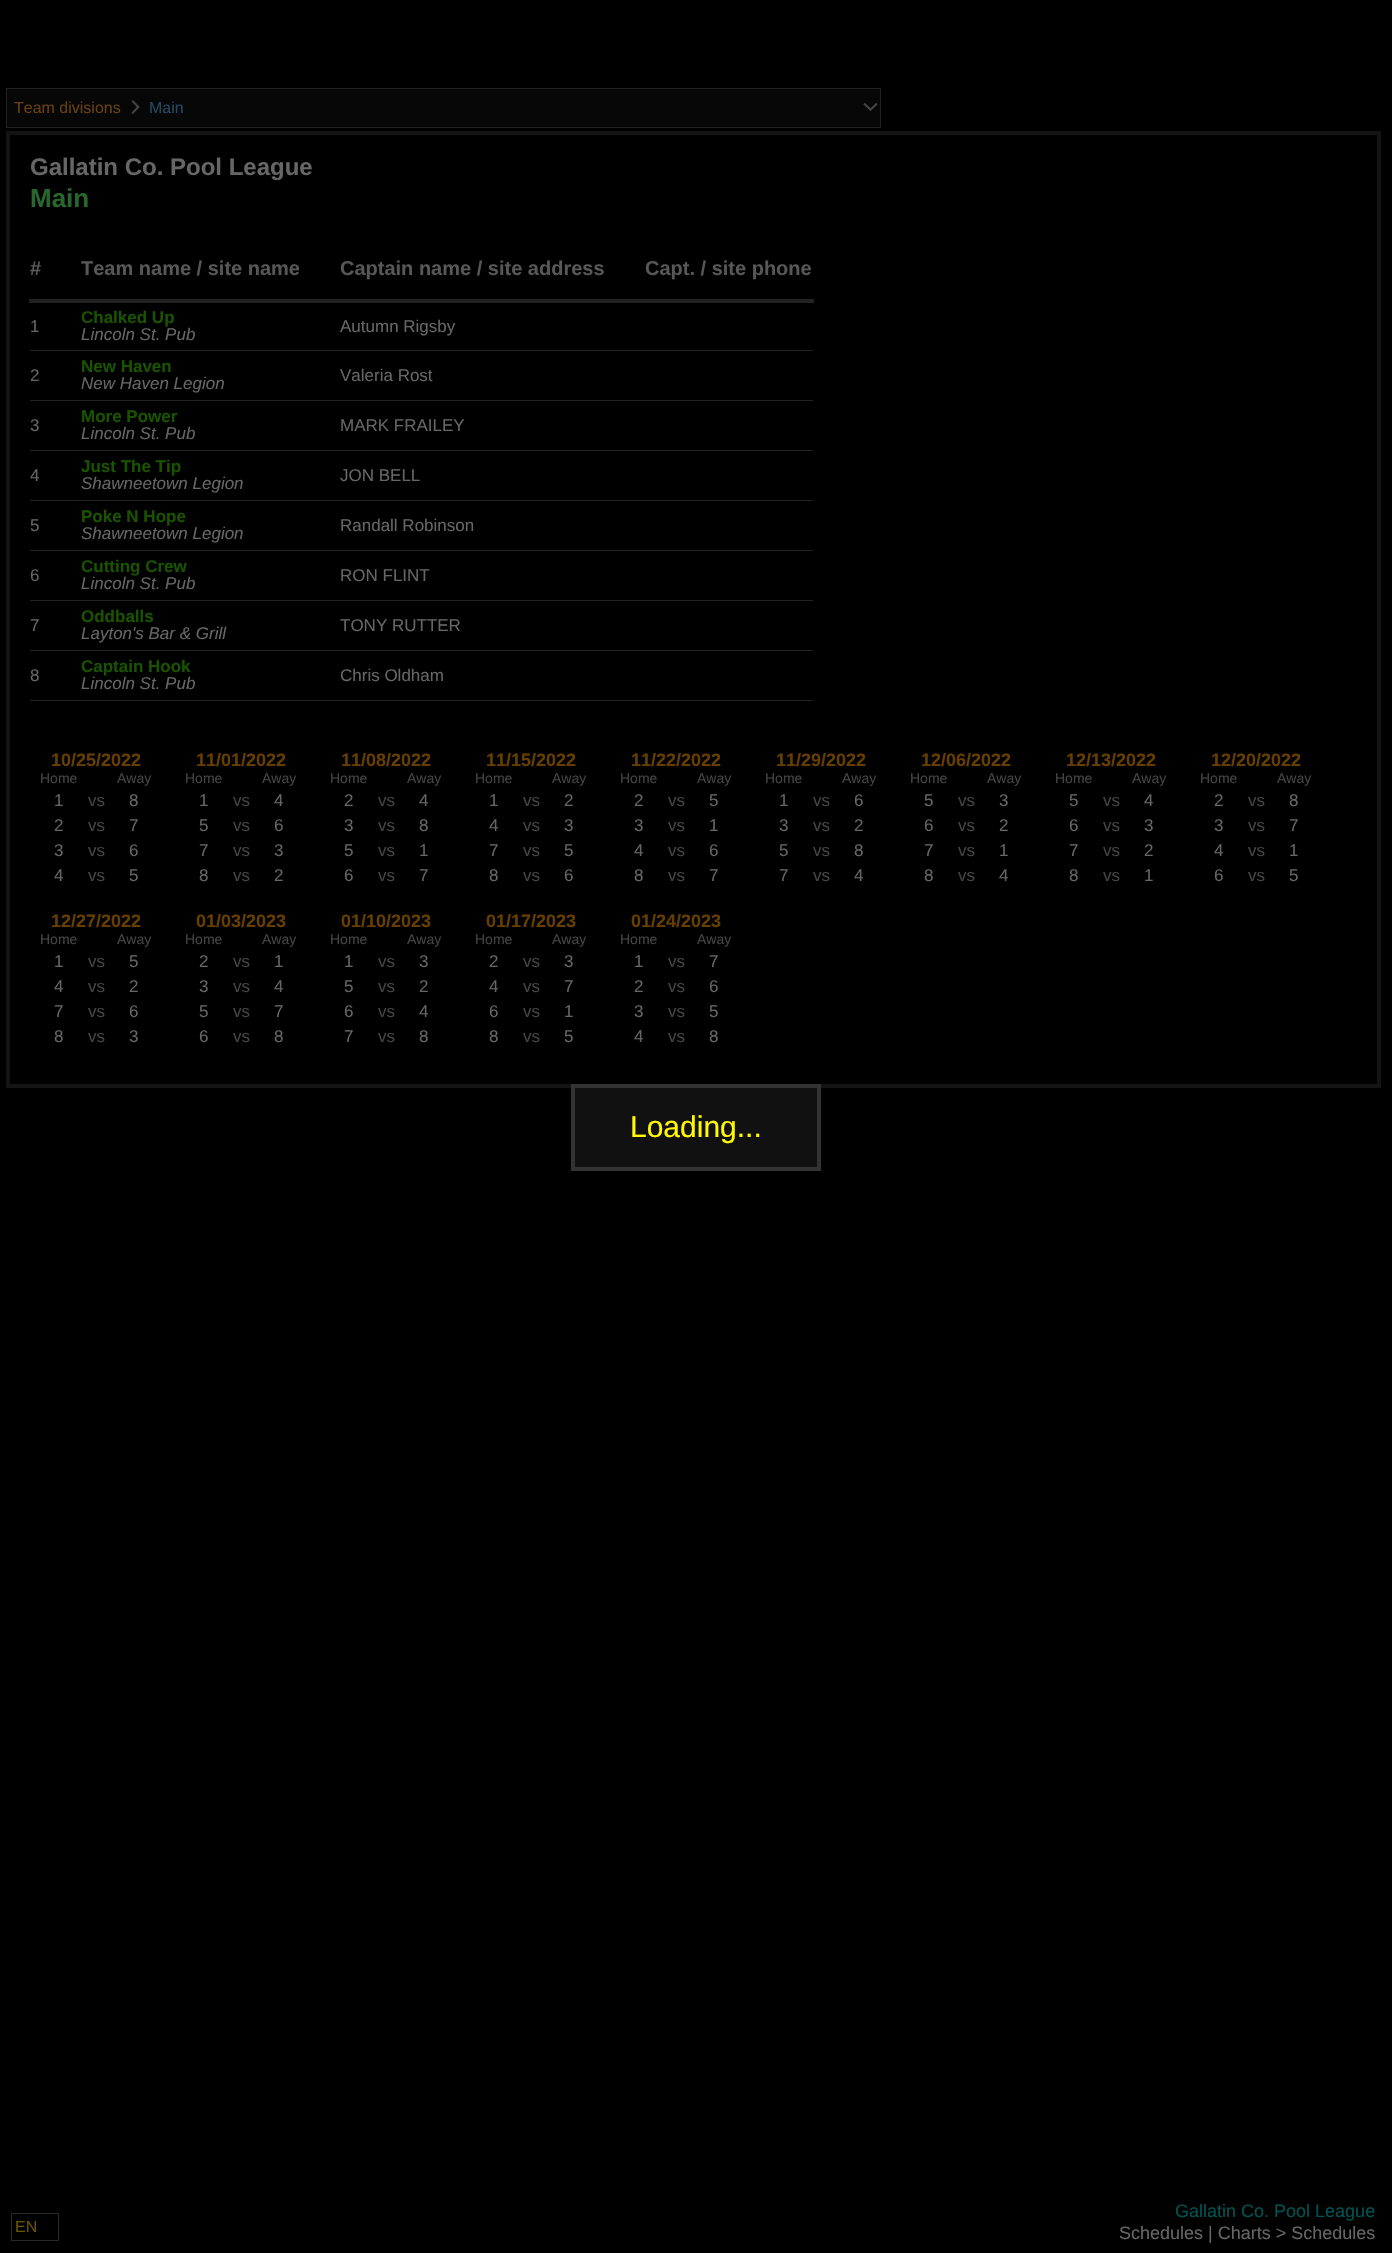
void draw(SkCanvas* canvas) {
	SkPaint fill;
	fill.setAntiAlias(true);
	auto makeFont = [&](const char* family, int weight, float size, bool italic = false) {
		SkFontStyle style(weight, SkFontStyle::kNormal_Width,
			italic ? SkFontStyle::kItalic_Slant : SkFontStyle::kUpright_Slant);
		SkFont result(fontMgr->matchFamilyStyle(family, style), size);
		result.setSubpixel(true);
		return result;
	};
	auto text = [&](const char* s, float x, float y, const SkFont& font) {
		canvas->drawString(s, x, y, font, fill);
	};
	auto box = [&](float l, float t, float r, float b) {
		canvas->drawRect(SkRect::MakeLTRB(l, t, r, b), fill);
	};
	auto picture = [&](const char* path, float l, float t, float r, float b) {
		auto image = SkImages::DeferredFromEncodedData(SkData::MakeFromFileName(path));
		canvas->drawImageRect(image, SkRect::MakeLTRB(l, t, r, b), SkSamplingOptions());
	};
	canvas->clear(0xFF000000);
	fill.setColor(0xFF070707);
	canvas->drawRect(SkRect::MakeLTRB(6.5f, 88.5f, 880.5f, 127.5f), fill);
	fill.setStyle(SkPaint::kStroke_Style);
	fill.setStrokeWidth(1);
	fill.setColor(0xFF222222);
	canvas->drawRect(SkRect::MakeLTRB(6.5f, 88.5f, 880.5f, 127.5f), fill);
	picture("image0.png", 131, 100, 140, 114);
	picture("image1.png", 863, 103, 878, 111);
	fill.setStrokeWidth(4);
	fill.setColor(0xFF141414);
	canvas->drawRect(SkRect::MakeLTRB(8, 133, 1379, 1086), fill);
	fill.setStyle(SkPaint::kFill_Style);
	fill.setColor(0xFF222222);
	box(29, 299, 814, 303);
	box(30, 350, 813, 351);
	box(30, 400, 813, 401);
	box(30, 450, 813, 451);
	box(30, 500, 813, 501);
	box(30, 550, 813, 551);
	box(30, 600, 813, 601);
	box(30, 650, 813, 651);
	box(30, 700, 813, 701);
	fill.setColor(0xFF111111);
	canvas->drawRect(SkRect::MakeLTRB(573, 1086, 819, 1169), fill);
	fill.setStyle(SkPaint::kStroke_Style);
	fill.setColor(0xFF333333);
	canvas->drawRect(SkRect::MakeLTRB(573, 1086, 819, 1169), fill);
	fill.setStrokeWidth(1);
	fill.setColor(0xFF292929);
	canvas->drawRect(SkRect::MakeLTRB(11.5f, 2213.5f, 58.5f, 2240.5f), fill);
	auto font1 = makeFont("Liberation Sans", 400, 16);
	fill.setStyle(SkPaint::kFill_Style);
	fill.setColor(0xFF664012);
	text("Team divisions", 14, 113, font1);
	fill.setColor(0xFF234860);
	text("Main", 149, 113, font1);
	auto font2 = makeFont("Liberation Sans", 700, 24);
	fill.setColor(0xFF666666);
	text("Gallatin Co. Pool League", 30, 175, font2);
	auto font3 = makeFont("Liberation Sans", 700, 26);
	fill.setColor(0xFF28662D);
	text("Main", 30, 207, font3);
	auto font4 = makeFont("Liberation Sans", 700, 20);
	fill.setColor(0xFF575757);
	text("#", 30, 275, font4);
	text("Team name / site name", 81, 275, font4);
	text("Captain name / site address", 340, 275, font4);
	text("Capt. / site phone", 645, 275, font4);
	auto font5 = makeFont("Liberation Sans", 400, 17);
	fill.setColor(0xFF666666);
	text("1", 30, 332, font5);
	auto font6 = makeFont("Liberation Sans", 700, 17);
	fill.setColor(0xFF1A5300);
	text("Chalked Up", 81, 323, font6);
	auto font7 = makeFont("Liberation Sans", 400, 17, true);
	fill.setColor(0xFF666666);
	text("Lincoln St. Pub", 81, 340, font7);
	text("Autumn Rigsby", 340, 332, font5);
	text("2", 30, 381, font5);
	fill.setColor(0xFF1A5300);
	text("New Haven", 81, 372, font6);
	fill.setColor(0xFF666666);
	text("New Haven Legion", 81, 389, font7);
	text("Valeria Rost", 340, 381, font5);
	text("3", 30, 431, font5);
	fill.setColor(0xFF1A5300);
	text("More Power", 81, 422, font6);
	fill.setColor(0xFF666666);
	text("Lincoln St. Pub", 81, 439, font7);
	text("MARK FRAILEY", 340, 431, font5);
	text("4", 30, 481, font5);
	fill.setColor(0xFF1A5300);
	text("Just The Tip", 81, 472, font6);
	fill.setColor(0xFF666666);
	text("Shawneetown Legion", 81, 489, font7);
	text("JON BELL", 340, 481, font5);
	text("5", 30, 531, font5);
	fill.setColor(0xFF1A5300);
	text("Poke N Hope", 81, 522, font6);
	fill.setColor(0xFF666666);
	text("Shawneetown Legion", 81, 539, font7);
	text("Randall Robinson", 340, 531, font5);
	text("6", 30, 581, font5);
	fill.setColor(0xFF1A5300);
	text("Cutting Crew", 81, 572, font6);
	fill.setColor(0xFF666666);
	text("Lincoln St. Pub", 81, 589, font7);
	text("RON FLINT", 340, 581, font5);
	text("7", 30, 631, font5);
	fill.setColor(0xFF1A5300);
	text("Oddballs", 81, 622, font6);
	fill.setColor(0xFF666666);
	text("Layton's Bar & Grill", 81, 639, font7);
	text("TONY RUTTER", 340, 631, font5);
	text("8", 30, 681, font5);
	fill.setColor(0xFF1A5300);
	text("Captain Hook", 81, 672, font6);
	fill.setColor(0xFF666666);
	text("Lincoln St. Pub", 81, 689, font7);
	text("Chris Oldham", 340, 681, font5);
	auto font8 = makeFont("Liberation Sans", 700, 18);
	fill.setColor(0xFF663E00);
	text("10/25/2022", 51, 766, font8);
	auto font9 = makeFont("Liberation Sans", 400, 14);
	fill.setColor(0xFF444444);
	text("Home", 40, 783, font9);
	text("Away", 117, 783, font9);
	fill.setColor(0xFF666666);
	text("1", 54, 806, font5);
	fill.setColor(0xFF444444);
	text("vs", 88, 806, font5);
	fill.setColor(0xFF666666);
	text("8", 129, 806, font5);
	text("2", 54, 831, font5);
	fill.setColor(0xFF444444);
	text("vs", 88, 831, font5);
	fill.setColor(0xFF666666);
	text("7", 129, 831, font5);
	text("3", 54, 856, font5);
	fill.setColor(0xFF444444);
	text("vs", 88, 856, font5);
	fill.setColor(0xFF666666);
	text("6", 129, 856, font5);
	text("4", 54, 881, font5);
	fill.setColor(0xFF444444);
	text("vs", 88, 881, font5);
	fill.setColor(0xFF666666);
	text("5", 129, 881, font5);
	fill.setColor(0xFF663E00);
	text("11/01/2022", 196, 766, font8);
	fill.setColor(0xFF444444);
	text("Home", 185, 783, font9);
	text("Away", 262, 783, font9);
	fill.setColor(0xFF666666);
	text("1", 199, 806, font5);
	fill.setColor(0xFF444444);
	text("vs", 233, 806, font5);
	fill.setColor(0xFF666666);
	text("4", 274, 806, font5);
	text("5", 199, 831, font5);
	fill.setColor(0xFF444444);
	text("vs", 233, 831, font5);
	fill.setColor(0xFF666666);
	text("6", 274, 831, font5);
	text("7", 199, 856, font5);
	fill.setColor(0xFF444444);
	text("vs", 233, 856, font5);
	fill.setColor(0xFF666666);
	text("3", 274, 856, font5);
	text("8", 199, 881, font5);
	fill.setColor(0xFF444444);
	text("vs", 233, 881, font5);
	fill.setColor(0xFF666666);
	text("2", 274, 881, font5);
	fill.setColor(0xFF663E00);
	text("11/08/2022", 341, 766, font8);
	fill.setColor(0xFF444444);
	text("Home", 330, 783, font9);
	text("Away", 407, 783, font9);
	fill.setColor(0xFF666666);
	text("2", 344, 806, font5);
	fill.setColor(0xFF444444);
	text("vs", 378, 806, font5);
	fill.setColor(0xFF666666);
	text("4", 419, 806, font5);
	text("3", 344, 831, font5);
	fill.setColor(0xFF444444);
	text("vs", 378, 831, font5);
	fill.setColor(0xFF666666);
	text("8", 419, 831, font5);
	text("5", 344, 856, font5);
	fill.setColor(0xFF444444);
	text("vs", 378, 856, font5);
	fill.setColor(0xFF666666);
	text("1", 419, 856, font5);
	text("6", 344, 881, font5);
	fill.setColor(0xFF444444);
	text("vs", 378, 881, font5);
	fill.setColor(0xFF666666);
	text("7", 419, 881, font5);
	fill.setColor(0xFF663E00);
	text("11/15/2022", 486, 766, font8);
	fill.setColor(0xFF444444);
	text("Home", 475, 783, font9);
	text("Away", 552, 783, font9);
	fill.setColor(0xFF666666);
	text("1", 489, 806, font5);
	fill.setColor(0xFF444444);
	text("vs", 523, 806, font5);
	fill.setColor(0xFF666666);
	text("2", 564, 806, font5);
	text("4", 489, 831, font5);
	fill.setColor(0xFF444444);
	text("vs", 523, 831, font5);
	fill.setColor(0xFF666666);
	text("3", 564, 831, font5);
	text("7", 489, 856, font5);
	fill.setColor(0xFF444444);
	text("vs", 523, 856, font5);
	fill.setColor(0xFF666666);
	text("5", 564, 856, font5);
	text("8", 489, 881, font5);
	fill.setColor(0xFF444444);
	text("vs", 523, 881, font5);
	fill.setColor(0xFF666666);
	text("6", 564, 881, font5);
	fill.setColor(0xFF663E00);
	text("11/22/2022", 631, 766, font8);
	fill.setColor(0xFF444444);
	text("Home", 620, 783, font9);
	text("Away", 697, 783, font9);
	fill.setColor(0xFF666666);
	text("2", 634, 806, font5);
	fill.setColor(0xFF444444);
	text("vs", 668, 806, font5);
	fill.setColor(0xFF666666);
	text("5", 709, 806, font5);
	text("3", 634, 831, font5);
	fill.setColor(0xFF444444);
	text("vs", 668, 831, font5);
	fill.setColor(0xFF666666);
	text("1", 709, 831, font5);
	text("4", 634, 856, font5);
	fill.setColor(0xFF444444);
	text("vs", 668, 856, font5);
	fill.setColor(0xFF666666);
	text("6", 709, 856, font5);
	text("8", 634, 881, font5);
	fill.setColor(0xFF444444);
	text("vs", 668, 881, font5);
	fill.setColor(0xFF666666);
	text("7", 709, 881, font5);
	fill.setColor(0xFF663E00);
	text("11/29/2022", 776, 766, font8);
	fill.setColor(0xFF444444);
	text("Home", 765, 783, font9);
	text("Away", 842, 783, font9);
	fill.setColor(0xFF666666);
	text("1", 779, 806, font5);
	fill.setColor(0xFF444444);
	text("vs", 813, 806, font5);
	fill.setColor(0xFF666666);
	text("6", 854, 806, font5);
	text("3", 779, 831, font5);
	fill.setColor(0xFF444444);
	text("vs", 813, 831, font5);
	fill.setColor(0xFF666666);
	text("2", 854, 831, font5);
	text("5", 779, 856, font5);
	fill.setColor(0xFF444444);
	text("vs", 813, 856, font5);
	fill.setColor(0xFF666666);
	text("8", 854, 856, font5);
	text("7", 779, 881, font5);
	fill.setColor(0xFF444444);
	text("vs", 813, 881, font5);
	fill.setColor(0xFF666666);
	text("4", 854, 881, font5);
	fill.setColor(0xFF663E00);
	text("12/06/2022", 921, 766, font8);
	fill.setColor(0xFF444444);
	text("Home", 910, 783, font9);
	text("Away", 987, 783, font9);
	fill.setColor(0xFF666666);
	text("5", 924, 806, font5);
	fill.setColor(0xFF444444);
	text("vs", 958, 806, font5);
	fill.setColor(0xFF666666);
	text("3", 999, 806, font5);
	text("6", 924, 831, font5);
	fill.setColor(0xFF444444);
	text("vs", 958, 831, font5);
	fill.setColor(0xFF666666);
	text("2", 999, 831, font5);
	text("7", 924, 856, font5);
	fill.setColor(0xFF444444);
	text("vs", 958, 856, font5);
	fill.setColor(0xFF666666);
	text("1", 999, 856, font5);
	text("8", 924, 881, font5);
	fill.setColor(0xFF444444);
	text("vs", 958, 881, font5);
	fill.setColor(0xFF666666);
	text("4", 999, 881, font5);
	fill.setColor(0xFF663E00);
	text("12/13/2022", 1066, 766, font8);
	fill.setColor(0xFF444444);
	text("Home", 1055, 783, font9);
	text("Away", 1132, 783, font9);
	fill.setColor(0xFF666666);
	text("5", 1069, 806, font5);
	fill.setColor(0xFF444444);
	text("vs", 1103, 806, font5);
	fill.setColor(0xFF666666);
	text("4", 1144, 806, font5);
	text("6", 1069, 831, font5);
	fill.setColor(0xFF444444);
	text("vs", 1103, 831, font5);
	fill.setColor(0xFF666666);
	text("3", 1144, 831, font5);
	text("7", 1069, 856, font5);
	fill.setColor(0xFF444444);
	text("vs", 1103, 856, font5);
	fill.setColor(0xFF666666);
	text("2", 1144, 856, font5);
	text("8", 1069, 881, font5);
	fill.setColor(0xFF444444);
	text("vs", 1103, 881, font5);
	fill.setColor(0xFF666666);
	text("1", 1144, 881, font5);
	fill.setColor(0xFF663E00);
	text("12/20/2022", 1211, 766, font8);
	fill.setColor(0xFF444444);
	text("Home", 1200, 783, font9);
	text("Away", 1277, 783, font9);
	fill.setColor(0xFF666666);
	text("2", 1214, 806, font5);
	fill.setColor(0xFF444444);
	text("vs", 1248, 806, font5);
	fill.setColor(0xFF666666);
	text("8", 1289, 806, font5);
	text("3", 1214, 831, font5);
	fill.setColor(0xFF444444);
	text("vs", 1248, 831, font5);
	fill.setColor(0xFF666666);
	text("7", 1289, 831, font5);
	text("4", 1214, 856, font5);
	fill.setColor(0xFF444444);
	text("vs", 1248, 856, font5);
	fill.setColor(0xFF666666);
	text("1", 1289, 856, font5);
	text("6", 1214, 881, font5);
	fill.setColor(0xFF444444);
	text("vs", 1248, 881, font5);
	fill.setColor(0xFF666666);
	text("5", 1289, 881, font5);
	fill.setColor(0xFF663E00);
	text("12/27/2022", 51, 927, font8);
	fill.setColor(0xFF444444);
	text("Home", 40, 944, font9);
	text("Away", 117, 944, font9);
	fill.setColor(0xFF666666);
	text("1", 54, 967, font5);
	fill.setColor(0xFF444444);
	text("vs", 88, 967, font5);
	fill.setColor(0xFF666666);
	text("5", 129, 967, font5);
	text("4", 54, 992, font5);
	fill.setColor(0xFF444444);
	text("vs", 88, 992, font5);
	fill.setColor(0xFF666666);
	text("2", 129, 992, font5);
	text("7", 54, 1017, font5);
	fill.setColor(0xFF444444);
	text("vs", 88, 1017, font5);
	fill.setColor(0xFF666666);
	text("6", 129, 1017, font5);
	text("8", 54, 1042, font5);
	fill.setColor(0xFF444444);
	text("vs", 88, 1042, font5);
	fill.setColor(0xFF666666);
	text("3", 129, 1042, font5);
	fill.setColor(0xFF663E00);
	text("01/03/2023", 196, 927, font8);
	fill.setColor(0xFF444444);
	text("Home", 185, 944, font9);
	text("Away", 262, 944, font9);
	fill.setColor(0xFF666666);
	text("2", 199, 967, font5);
	fill.setColor(0xFF444444);
	text("vs", 233, 967, font5);
	fill.setColor(0xFF666666);
	text("1", 274, 967, font5);
	text("3", 199, 992, font5);
	fill.setColor(0xFF444444);
	text("vs", 233, 992, font5);
	fill.setColor(0xFF666666);
	text("4", 274, 992, font5);
	text("5", 199, 1017, font5);
	fill.setColor(0xFF444444);
	text("vs", 233, 1017, font5);
	fill.setColor(0xFF666666);
	text("7", 274, 1017, font5);
	text("6", 199, 1042, font5);
	fill.setColor(0xFF444444);
	text("vs", 233, 1042, font5);
	fill.setColor(0xFF666666);
	text("8", 274, 1042, font5);
	fill.setColor(0xFF663E00);
	text("01/10/2023", 341, 927, font8);
	fill.setColor(0xFF444444);
	text("Home", 330, 944, font9);
	text("Away", 407, 944, font9);
	fill.setColor(0xFF666666);
	text("1", 344, 967, font5);
	fill.setColor(0xFF444444);
	text("vs", 378, 967, font5);
	fill.setColor(0xFF666666);
	text("3", 419, 967, font5);
	text("5", 344, 992, font5);
	fill.setColor(0xFF444444);
	text("vs", 378, 992, font5);
	fill.setColor(0xFF666666);
	text("2", 419, 992, font5);
	text("6", 344, 1017, font5);
	fill.setColor(0xFF444444);
	text("vs", 378, 1017, font5);
	fill.setColor(0xFF666666);
	text("4", 419, 1017, font5);
	text("7", 344, 1042, font5);
	fill.setColor(0xFF444444);
	text("vs", 378, 1042, font5);
	fill.setColor(0xFF666666);
	text("8", 419, 1042, font5);
	fill.setColor(0xFF663E00);
	text("01/17/2023", 486, 927, font8);
	fill.setColor(0xFF444444);
	text("Home", 475, 944, font9);
	text("Away", 552, 944, font9);
	fill.setColor(0xFF666666);
	text("2", 489, 967, font5);
	fill.setColor(0xFF444444);
	text("vs", 523, 967, font5);
	fill.setColor(0xFF666666);
	text("3", 564, 967, font5);
	text("4", 489, 992, font5);
	fill.setColor(0xFF444444);
	text("vs", 523, 992, font5);
	fill.setColor(0xFF666666);
	text("7", 564, 992, font5);
	text("6", 489, 1017, font5);
	fill.setColor(0xFF444444);
	text("vs", 523, 1017, font5);
	fill.setColor(0xFF666666);
	text("1", 564, 1017, font5);
	text("8", 489, 1042, font5);
	fill.setColor(0xFF444444);
	text("vs", 523, 1042, font5);
	fill.setColor(0xFF666666);
	text("5", 564, 1042, font5);
	fill.setColor(0xFF663E00);
	text("01/24/2023", 631, 927, font8);
	fill.setColor(0xFF444444);
	text("Home", 620, 944, font9);
	text("Away", 697, 944, font9);
	fill.setColor(0xFF666666);
	text("1", 634, 967, font5);
	fill.setColor(0xFF444444);
	text("vs", 668, 967, font5);
	fill.setColor(0xFF666666);
	text("7", 709, 967, font5);
	text("2", 634, 992, font5);
	fill.setColor(0xFF444444);
	text("vs", 668, 992, font5);
	fill.setColor(0xFF666666);
	text("6", 709, 992, font5);
	text("3", 634, 1017, font5);
	fill.setColor(0xFF444444);
	text("vs", 668, 1017, font5);
	fill.setColor(0xFF666666);
	text("5", 709, 1017, font5);
	text("4", 634, 1042, font5);
	fill.setColor(0xFF444444);
	text("vs", 668, 1042, font5);
	fill.setColor(0xFF666666);
	text("8", 709, 1042, font5);
	auto font10 = makeFont("Liberation Sans", 400, 30);
	fill.setColor(0xFFFFFA00);
	text("Loading...", 630, 1137, font10);
	fill.setColor(0xFF665600);
	text("EN", 15, 2232, font1);
	auto font11 = makeFont("Liberation Sans", 400, 18);
	fill.setColor(0xFF005351);
	text("Gallatin Co. Pool League", 1175, 2217, font11);
	fill.setColor(0xFF666666);
	text("Schedules | Charts > Schedules", 1119, 2239, font11);
}
